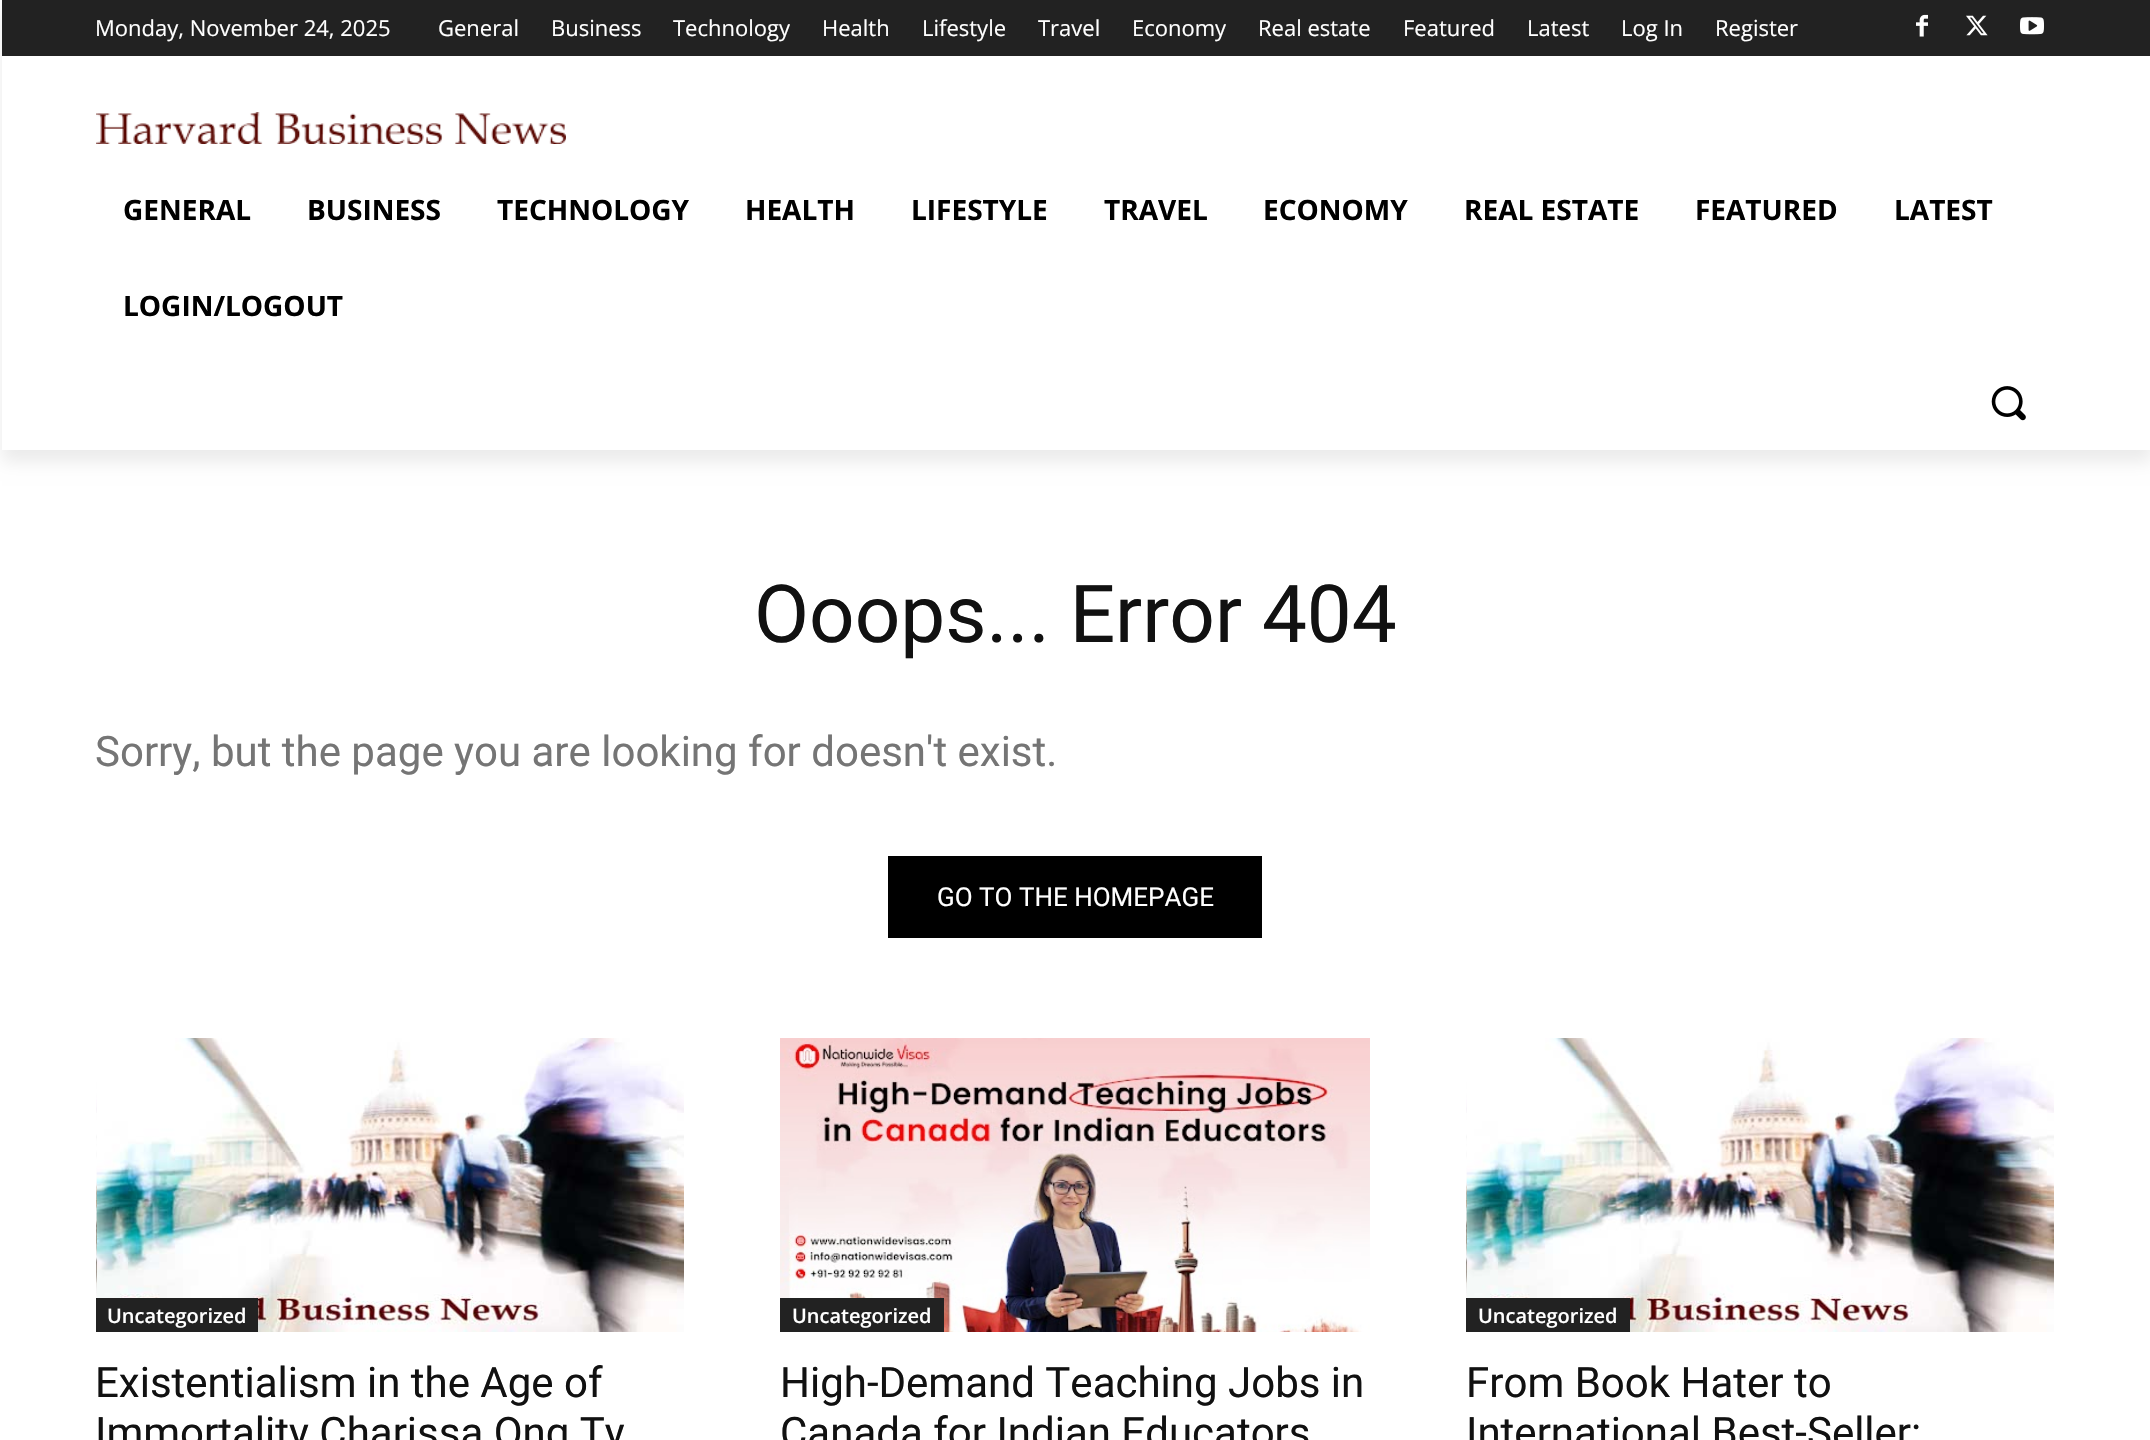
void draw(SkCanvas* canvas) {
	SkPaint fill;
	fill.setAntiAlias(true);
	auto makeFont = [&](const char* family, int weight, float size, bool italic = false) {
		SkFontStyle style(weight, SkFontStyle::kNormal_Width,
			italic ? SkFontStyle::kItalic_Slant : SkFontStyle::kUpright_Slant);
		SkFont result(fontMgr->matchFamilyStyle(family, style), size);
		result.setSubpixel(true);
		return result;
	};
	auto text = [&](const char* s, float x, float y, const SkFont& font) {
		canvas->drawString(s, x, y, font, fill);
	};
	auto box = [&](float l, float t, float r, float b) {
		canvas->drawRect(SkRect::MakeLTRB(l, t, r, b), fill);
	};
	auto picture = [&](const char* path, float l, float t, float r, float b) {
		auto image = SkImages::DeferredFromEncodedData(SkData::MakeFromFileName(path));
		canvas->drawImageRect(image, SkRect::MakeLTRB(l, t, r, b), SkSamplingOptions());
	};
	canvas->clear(0xFFFFFFFF);
	fill.setColor(0xFF222222);
	box(2, 0, 2150, 56);
	picture("image0.png", 1916, 14, 1928, 37);
	picture("image1.png", 1966, 15, 1988, 36);
	picture("image2.png", 2020, 17, 2044, 35);
	picture("image3.png", 96, 112, 566, 144);
	canvas->save();
	canvas->clipPath(SkPathBuilder(SkPathFillType::kEvenOdd).moveTo(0, 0).lineTo(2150, 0).lineTo(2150, 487).lineTo(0, 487).close().moveTo(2, 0).lineTo(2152, 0).lineTo(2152, 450).lineTo(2, 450).close().detach(), true);
	fill.setColor(0x14000000);
	fill.setMaskFilter(SkMaskFilter::MakeBlur(kNormal_SkBlurStyle, 8));
	canvas->drawRect(SkRect::MakeLTRB(2, 12, 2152, 462), fill);
	fill.setMaskFilter(nullptr);
	canvas->restore();
	picture("image4.png", 1991, 386, 2026, 421);
	fill.setColor(0xFF000000);
	box(888, 856, 1262, 938);
	picture("image5.png", 96, 1038, 684, 1332);
	fill.setColor(0xFF222222);
	box(96, 1298, 258, 1332);
	picture("image6.png", 780, 1038, 1370, 1332);
	box(780, 1298, 944, 1332);
	picture("image7.png", 1466, 1038, 2054, 1332);
	box(1466, 1298, 1630, 1332);
	auto font1 = makeFont("Open Sans", 400, 22);
	fill.setColor(0xFFFFFFFF);
	text("Monday, November 24, 2025", 95, 36, font1);
	text("General", 438, 36, font1);
	text("Business", 551, 36, font1);
	text("Technology", 673, 36, font1);
	text("Health", 822, 36, font1);
	text("Lifestyle", 922, 36, font1);
	text("Travel", 1038, 36, font1);
	text("Economy", 1132, 36, font1);
	text("Real estate", 1258, 36, font1);
	text("Featured", 1403, 36, font1);
	text("Latest", 1527, 36, font1);
	text("Log In", 1621, 36, font1);
	text("Register", 1715, 36, font1);
	auto font2 = makeFont("Open Sans", 700, 28);
	fill.setColor(0xFF000000);
	text("GENERAL", 123, 220, font2);
	text("BUSINESS", 307, 220, font2);
	text("TECHNOLOGY", 497, 220, font2);
	text("HEALTH", 745, 220, font2);
	text("LIFESTYLE", 911, 220, font2);
	text("TRAVEL", 1104, 220, font2);
	text("ECONOMY", 1263, 220, font2);
	text("REAL ESTATE", 1464, 220, font2);
	text("FEATURED", 1695, 220, font2);
	text("LATEST", 1894, 220, font2);
	text("LOGIN/LOGOUT", 123, 316, font2);
	auto font3 = makeFont("Roboto", 400, 80);
	fill.setColor(0xFF111111);
	text("Ooops... Error 404", 754, 642, font3);
	auto font4 = makeFont("Roboto", 400, 42);
	fill.setColor(0xFF757575);
	text("Sorry, but the page you are looking for doesn't exist.", 95, 766, font4);
	auto font5 = makeFont("Roboto", 400, 26);
	fill.setColor(0xFFFFFFFF);
	text("GO TO THE HOMEPAGE", 937, 906, font5);
	auto font6 = makeFont("Open Sans", 600, 20);
	text("Uncategorized", 107, 1323, font6);
	fill.setColor(0xFF111111);
	text("Existentialism in the Age of", 95, 1397, font4);
	text("Immortality Charissa Ong Ty", 95, 1447, font4);
	fill.setColor(0xFFFFFFFF);
	text("Uncategorized", 792, 1323, font6);
	fill.setColor(0xFF111111);
	text("High-Demand Teaching Jobs in", 780, 1397, font4);
	text("Canada for Indian Educators", 780, 1447, font4);
	fill.setColor(0xFFFFFFFF);
	text("Uncategorized", 1478, 1323, font6);
	fill.setColor(0xFF111111);
	text("From Book Hater to", 1466, 1397, font4);
	text("International Best-Seller:", 1466, 1447, font4);
}
